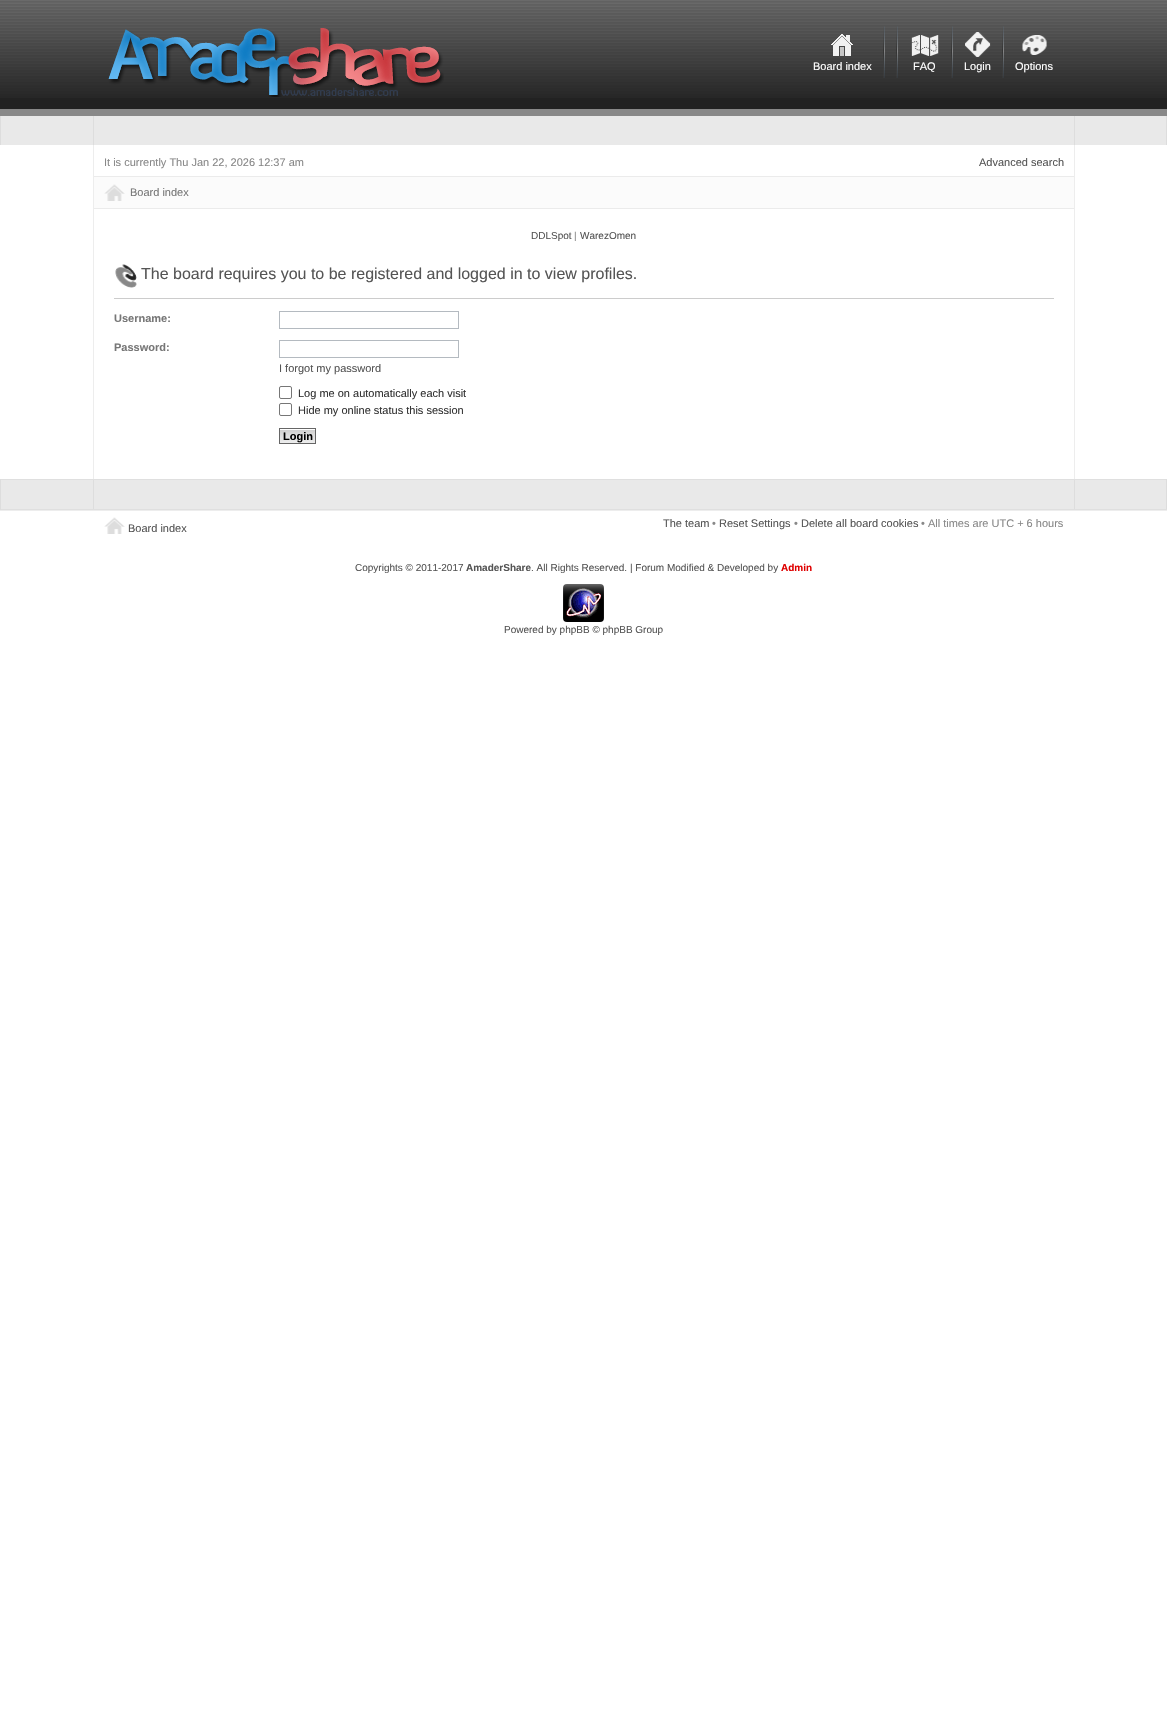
void draw(SkCanvas* canvas) {
	SkPaint fill;
	fill.setAntiAlias(true);
	auto makeFont = [&](const char* family, int weight, float size, bool italic = false) {
		SkFontStyle style(weight, SkFontStyle::kNormal_Width,
			italic ? SkFontStyle::kItalic_Slant : SkFontStyle::kUpright_Slant);
		SkFont result(fontMgr->matchFamilyStyle(family, style), size);
		result.setSubpixel(true);
		return result;
	};
	auto text = [&](const char* s, float x, float y, const SkFont& font) {
		canvas->drawString(s, x, y, font, fill);
	};
	auto box = [&](float l, float t, float r, float b) {
		canvas->drawRect(SkRect::MakeLTRB(l, t, r, b), fill);
	};
	auto picture = [&](const char* path, float l, float t, float r, float b) {
		auto image = SkImages::DeferredFromEncodedData(SkData::MakeFromFileName(path));
		canvas->drawImageRect(image, SkRect::MakeLTRB(l, t, r, b), SkSamplingOptions());
	};
	canvas->clear(0xFFFFFFFF);
	fill.setColor(0xFF222222);
	box(0, 98, 1167, 109);
	picture("image0.png", 0, 0, 1167, 98);
	fill.setColor(0xFF888888);
	box(0, 109, 1167, 116);
	picture("image1.png", 108, 28, 444, 97);
	picture("image2.png", 831, 34, 853, 56);
	picture("image3.png", 883, 26, 885, 78);
	picture("image3.png", 896, 26, 898, 78);
	picture("image4.png", 911, 35, 939, 56);
	picture("image3.png", 951, 26, 953, 78);
	picture("image5.png", 965, 32, 991, 57);
	picture("image3.png", 1002, 26, 1004, 78);
	picture("image6.png", 1022, 35, 1047, 55);
	fill.setColor(0xFFE9E9E9);
	box(1, 116, 1166, 145);
	fill.setColor(0xFFDDDDDD);
	box(1166, 116, 1167, 145);
	box(0, 116, 1, 145);
	box(1074, 116, 1075, 145);
	box(93, 116, 94, 145);
	fill.setColor(0xFFEDEDED);
	box(1074, 145, 1075, 479);
	box(93, 145, 94, 479);
	fill.setColor(0xFFFBFBFB);
	box(94, 177, 1074, 208);
	fill.setColor(0xFFEBEBEB);
	box(94, 176, 1074, 177);
	box(94, 208, 1074, 209);
	picture("image7.png", 104, 184, 125, 201);
	picture("image8.png", 115, 264, 137, 288);
	fill.setColor(0xFFCCCCCC);
	box(114, 298, 1054, 299);
	fill.setStyle(SkPaint::kStroke_Style);
	fill.setStrokeWidth(1);
	fill.setColor(0xFFB4BAC0);
	canvas->drawRect(SkRect::MakeLTRB(279.5f, 311.5f, 458.5f, 328.5f), fill);
	canvas->drawRect(SkRect::MakeLTRB(279.5f, 340.5f, 458.5f, 357.5f), fill);
	fill.setColor(0xFF767676);
	canvas->drawRoundRect(SkRect::MakeLTRB(279.5f, 386.5f, 291.5f, 398.5f), 1.5f, 1.5f, fill);
	canvas->drawRoundRect(SkRect::MakeLTRB(279.5f, 403.5f, 291.5f, 415.5f), 1.5f, 1.5f, fill);
	picture("image9.png", 280, 429, 315, 443);
	fill.setColor(0xFF666666);
	canvas->drawRect(SkRect::MakeLTRB(279.5f, 428.5f, 315.5f, 443.5f), fill);
	fill.setStyle(SkPaint::kFill_Style);
	fill.setColor(0xFFE9E9E9);
	box(1, 480, 1166, 509);
	fill.setColor(0xFFDFDFDF);
	box(0, 479, 1167, 480);
	fill.setColor(0xFFDDDDDD);
	box(1166, 479, 1167, 510);
	fill.setColor(0xFFDFDFDF);
	box(0, 509, 1167, 510);
	fill.setColor(0xFFDDDDDD);
	box(0, 479, 1, 510);
	box(1074, 480, 1075, 509);
	box(93, 480, 94, 509);
	fill.setColor(0xFFEDEDED);
	box(0, 510, 1167, 511);
	picture("image10.png", 104, 517, 125, 534);
	picture("image11.png", 563, 584, 604, 622);
	auto font1 = makeFont("Liberation Sans", 400, 11);
	fill.setColor(0xFFFFFFFF);
	text("Board index", 813, 70, font1);
	text("FAQ", 913, 70, font1);
	text("Login", 964, 70, font1);
	text("Options", 1015, 70, font1);
	fill.setColor(0xFF888888);
	text("It is currently Thu Jan 22, 2026 12:37 am", 104, 166, font1);
	fill.setColor(0xFF555555);
	text("Advanced search", 979, 166, font1);
	fill.setColor(0xFF777777);
	text("Board index", 130, 196, font1);
	auto font2 = makeFont("Liberation Sans", 400, 10);
	fill.setColor(0xFF555555);
	text("DDLSpot", 531, 239, font2);
	fill.setColor(0xFF888888);
	text("|", 574, 239, font2);
	fill.setColor(0xFF555555);
	text("WarezOmen", 580, 239, font2);
	auto font3 = makeFont("Liberation Sans", 400, 16);
	text("The board requires you to be registered and logged in to view profiles.", 141, 279, font3);
	auto font4 = makeFont("Liberation Sans", 700, 11);
	fill.setColor(0xFF777777);
	text("Username:", 114, 322, font4);
	text("Password:", 114, 351, font4);
	fill.setColor(0xFF555555);
	text("I forgot my password", 279, 372, font1);
	fill.setColor(0xFF333333);
	text("Log me on automatically each visit", 298, 397, font1);
	text("Hide my online status this session", 298, 414, font1);
	fill.setColor(0xFF000000);
	text("Login", 283, 440, font4);
	fill.setColor(0xFF555555);
	text("Board index", 128, 532, font1);
	text("The team", 663, 527, font1);
	fill.setColor(0xFF888888);
	text("•", 712, 527, font1);
	fill.setColor(0xFF555555);
	text("Reset Settings", 719, 527, font1);
	fill.setColor(0xFF888888);
	text("•", 794, 527, font1);
	fill.setColor(0xFF555555);
	text("Delete all board cookies", 801, 527, font1);
	fill.setColor(0xFF888888);
	text("• All times are UTC + 6 hours", 921, 527, font1);
	fill.setColor(0xFF555555);
	text("Copyrights © 2011-2017", 355, 571, font2);
	auto font5 = makeFont("Liberation Sans", 700, 10);
	text("AmaderShare", 466, 571, font5);
	text(". All Rights Reserved. | Forum Modified & Developed by", 531, 571, font2);
	fill.setColor(0xFFDF0101);
	text("Admin", 781, 571, font5);
	fill.setColor(0xFF555555);
	text("Powered by phpBB © phpBB Group", 504, 633, font2);
}
